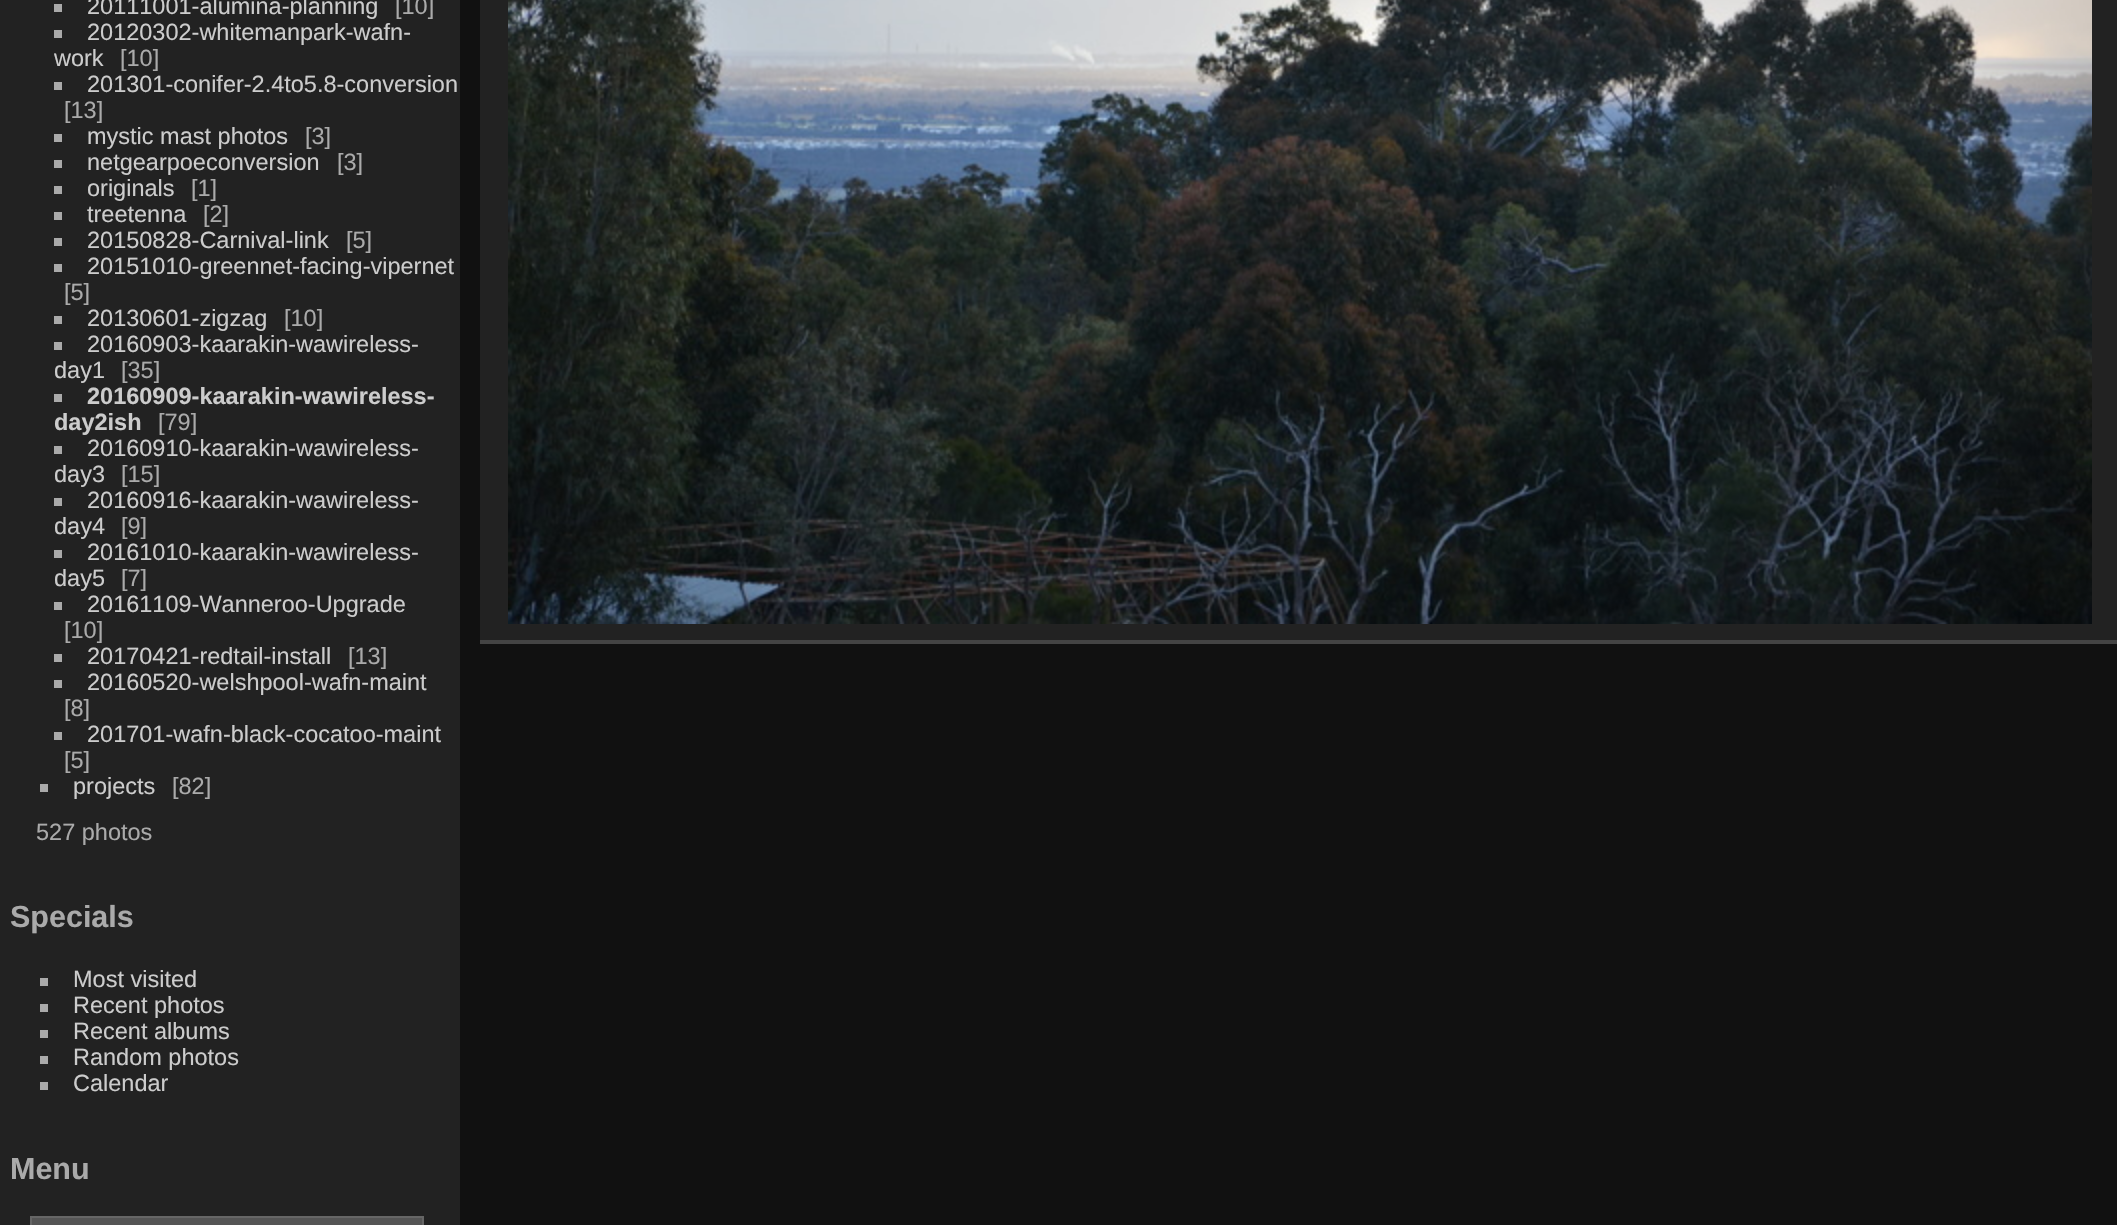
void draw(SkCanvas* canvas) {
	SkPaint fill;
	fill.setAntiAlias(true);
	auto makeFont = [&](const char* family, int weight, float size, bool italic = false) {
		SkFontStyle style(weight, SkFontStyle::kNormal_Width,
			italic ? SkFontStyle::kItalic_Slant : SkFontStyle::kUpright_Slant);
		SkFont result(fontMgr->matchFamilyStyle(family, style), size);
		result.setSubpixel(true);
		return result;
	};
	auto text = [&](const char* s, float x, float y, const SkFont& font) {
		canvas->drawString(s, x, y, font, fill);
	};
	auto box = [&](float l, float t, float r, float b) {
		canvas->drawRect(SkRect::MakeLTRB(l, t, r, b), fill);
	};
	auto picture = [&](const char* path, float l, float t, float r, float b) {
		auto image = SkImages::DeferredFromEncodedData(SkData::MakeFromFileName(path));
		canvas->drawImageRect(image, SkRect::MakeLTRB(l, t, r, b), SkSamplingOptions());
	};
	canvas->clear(0xFF111111);
	fill.setColor(0xFF222222);
	box(0, 0, 460, 1225);
	fill.setColor(0xFFAAAAAA);
	box(54, 4, 62, 12);
	box(54, 30, 62, 38);
	box(54, 82, 62, 90);
	box(54, 134, 62, 142);
	box(54, 160, 62, 168);
	box(54, 186, 62, 194);
	box(54, 212, 62, 220);
	box(54, 238, 62, 246);
	box(54, 264, 62, 272);
	box(54, 316, 62, 324);
	box(54, 342, 62, 350);
	box(54, 394, 62, 402);
	box(54, 446, 62, 454);
	box(54, 498, 62, 506);
	box(54, 550, 62, 558);
	box(54, 602, 62, 610);
	box(54, 654, 62, 662);
	box(54, 680, 62, 688);
	box(54, 732, 62, 740);
	box(40, 784, 48, 792);
	box(40, 978, 48, 986);
	box(40, 1004, 48, 1012);
	box(40, 1030, 48, 1038);
	box(40, 1056, 48, 1064);
	box(40, 1082, 48, 1090);
	fill.setColor(0xFF555555);
	canvas->drawRect(SkRect::MakeLTRB(31, 1217, 423, 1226), fill);
	fill.setStyle(SkPaint::kStroke_Style);
	fill.setStrokeWidth(2);
	fill.setColor(0xFF666666);
	canvas->drawRect(SkRect::MakeLTRB(31, 1217, 423, 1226), fill);
	fill.setStyle(SkPaint::kFill_Style);
	fill.setColor(0xFF222222);
	box(480, 0, 2117, 640);
	fill.setColor(0xFF444444);
	box(480, 640, 2117, 644);
	picture("image0.png", 508, 0, 2092, 624);
	auto font1 = makeFont("Liberation Sans", 400, 23.5f);
	fill.setColor(0xFFCCCCCC);
	text("20111001-alumina-planning", 87, 14, font1);
	fill.setColor(0xFFAAAAAA);
	text("[10]", 395, 14, font1);
	fill.setColor(0xFFCCCCCC);
	text("20120302-whitemanpark-wafn-", 87, 40, font1);
	text("work", 54, 66, font1);
	fill.setColor(0xFFAAAAAA);
	text("[10]", 120, 66, font1);
	fill.setColor(0xFFCCCCCC);
	text("201301-conifer-2.4to5.8-conversion", 87, 92, font1);
	fill.setColor(0xFFAAAAAA);
	text("[13]", 64, 118, font1);
	fill.setColor(0xFFCCCCCC);
	text("mystic mast photos", 87, 144, font1);
	fill.setColor(0xFFAAAAAA);
	text("[3]", 305, 144, font1);
	fill.setColor(0xFFCCCCCC);
	text("netgearpoeconversion", 87, 170, font1);
	fill.setColor(0xFFAAAAAA);
	text("[3]", 337, 170, font1);
	fill.setColor(0xFFCCCCCC);
	text("originals", 87, 196, font1);
	fill.setColor(0xFFAAAAAA);
	text("[1]", 191, 196, font1);
	fill.setColor(0xFFCCCCCC);
	text("treetenna", 87, 222, font1);
	fill.setColor(0xFFAAAAAA);
	text("[2]", 203, 222, font1);
	fill.setColor(0xFFCCCCCC);
	text("20150828-Carnival-link", 87, 248, font1);
	fill.setColor(0xFFAAAAAA);
	text("[5]", 346, 248, font1);
	fill.setColor(0xFFCCCCCC);
	text("20151010-greennet-facing-vipernet", 87, 274, font1);
	fill.setColor(0xFFAAAAAA);
	text("[5]", 64, 300, font1);
	fill.setColor(0xFFCCCCCC);
	text("20130601-zigzag", 87, 326, font1);
	fill.setColor(0xFFAAAAAA);
	text("[10]", 284, 326, font1);
	fill.setColor(0xFFCCCCCC);
	text("20160903-kaarakin-wawireless-", 87, 352, font1);
	text("day1", 54, 378, font1);
	fill.setColor(0xFFAAAAAA);
	text("[35]", 121, 378, font1);
	auto font2 = makeFont("Liberation Sans", 700, 23.5f);
	fill.setColor(0xFFCCCCCC);
	text("20160909-kaarakin-wawireless-", 87, 404, font2);
	text("day2ish", 54, 430, font2);
	fill.setColor(0xFFAAAAAA);
	text("[79]", 158, 430, font1);
	fill.setColor(0xFFCCCCCC);
	text("20160910-kaarakin-wawireless-", 87, 456, font1);
	text("day3", 54, 482, font1);
	fill.setColor(0xFFAAAAAA);
	text("[15]", 121, 482, font1);
	fill.setColor(0xFFCCCCCC);
	text("20160916-kaarakin-wawireless-", 87, 508, font1);
	text("day4", 54, 534, font1);
	fill.setColor(0xFFAAAAAA);
	text("[9]", 121, 534, font1);
	fill.setColor(0xFFCCCCCC);
	text("20161010-kaarakin-wawireless-", 87, 560, font1);
	text("day5", 54, 586, font1);
	fill.setColor(0xFFAAAAAA);
	text("[7]", 121, 586, font1);
	fill.setColor(0xFFCCCCCC);
	text("20161109-Wanneroo-Upgrade", 87, 612, font1);
	fill.setColor(0xFFAAAAAA);
	text("[10]", 64, 638, font1);
	fill.setColor(0xFFCCCCCC);
	text("20170421-redtail-install", 87, 664, font1);
	fill.setColor(0xFFAAAAAA);
	text("[13]", 348, 664, font1);
	fill.setColor(0xFFCCCCCC);
	text("20160520-welshpool-wafn-maint", 87, 690, font1);
	fill.setColor(0xFFAAAAAA);
	text("[8]", 64, 716, font1);
	fill.setColor(0xFFCCCCCC);
	text("201701-wafn-black-cocatoo-maint", 87, 742, font1);
	fill.setColor(0xFFAAAAAA);
	text("[5]", 64, 768, font1);
	fill.setColor(0xFFCCCCCC);
	text("projects", 73, 794, font1);
	fill.setColor(0xFFAAAAAA);
	text("[82]", 172, 794, font1);
	text("527 photos", 36, 840, font1);
	auto font3 = makeFont("Liberation Sans", 700, 30.5f);
	text("Specials", 10, 927, font3);
	fill.setColor(0xFFCCCCCC);
	text("Most visited", 73, 987, font1);
	text("Recent photos", 73, 1013, font1);
	text("Recent albums", 73, 1039, font1);
	text("Random photos", 73, 1065, font1);
	text("Calendar", 73, 1091, font1);
	fill.setColor(0xFFAAAAAA);
	text("Menu", 10, 1179, font3);
}
